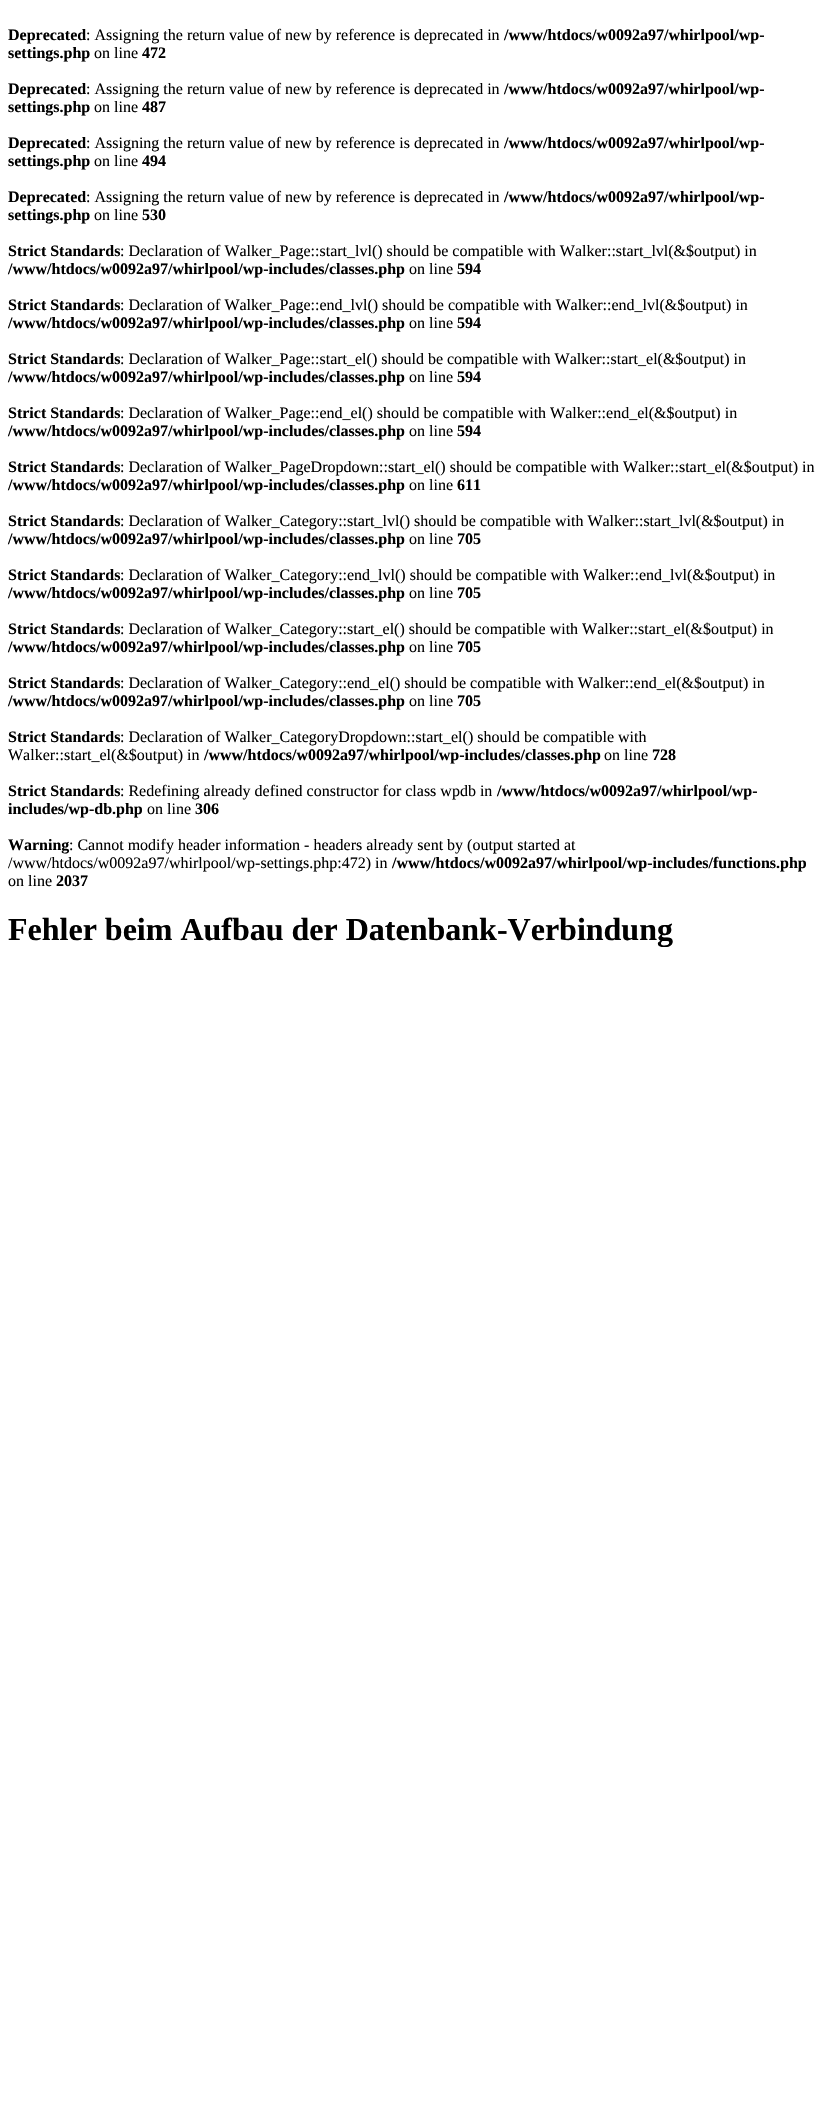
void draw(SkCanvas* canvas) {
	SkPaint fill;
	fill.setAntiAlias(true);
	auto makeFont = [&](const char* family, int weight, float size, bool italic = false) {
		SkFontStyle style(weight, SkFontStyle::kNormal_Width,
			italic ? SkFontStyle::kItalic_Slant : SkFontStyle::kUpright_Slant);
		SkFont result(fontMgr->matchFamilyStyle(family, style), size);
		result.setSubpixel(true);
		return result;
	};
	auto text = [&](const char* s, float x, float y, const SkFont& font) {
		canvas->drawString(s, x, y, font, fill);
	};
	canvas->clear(0xFFFFFFFF);
	auto font1 = makeFont("Liberation Serif", 700, 16);
	fill.setColor(0xFF000000);
	text("Deprecated", 8, 40, font1);
	auto font2 = makeFont("Liberation Serif", 400, 16);
	text(": Assigning the return value of new by reference is deprecated in", 86, 40, font2);
	text("/www/htdocs/w0092a97/whirlpool/wp-", 504, 40, font1);
	text("settings.php", 8, 58, font1);
	text("on line", 94, 58, font2);
	text("472", 142, 58, font1);
	text("Deprecated", 8, 94, font1);
	text(": Assigning the return value of new by reference is deprecated in", 86, 94, font2);
	text("/www/htdocs/w0092a97/whirlpool/wp-", 504, 94, font1);
	text("settings.php", 8, 112, font1);
	text("on line", 94, 112, font2);
	text("487", 142, 112, font1);
	text("Deprecated", 8, 148, font1);
	text(": Assigning the return value of new by reference is deprecated in", 86, 148, font2);
	text("/www/htdocs/w0092a97/whirlpool/wp-", 504, 148, font1);
	text("settings.php", 8, 166, font1);
	text("on line", 94, 166, font2);
	text("494", 142, 166, font1);
	text("Deprecated", 8, 202, font1);
	text(": Assigning the return value of new by reference is deprecated in", 86, 202, font2);
	text("/www/htdocs/w0092a97/whirlpool/wp-", 504, 202, font1);
	text("settings.php", 8, 220, font1);
	text("on line", 94, 220, font2);
	text("530", 142, 220, font1);
	text("Strict Standards", 8, 256, font1);
	text(": Declaration of Walker_Page::start_lvl() should be compatible with Walker::start_lvl(&$output) in", 120, 256, font2);
	text("/www/htdocs/w0092a97/whirlpool/wp-includes/classes.php", 8, 274, font1);
	text("on line", 409, 274, font2);
	text("594", 457, 274, font1);
	text("Strict Standards", 8, 310, font1);
	text(": Declaration of Walker_Page::end_lvl() should be compatible with Walker::end_lvl(&$output) in", 120, 310, font2);
	text("/www/htdocs/w0092a97/whirlpool/wp-includes/classes.php", 8, 328, font1);
	text("on line", 409, 328, font2);
	text("594", 457, 328, font1);
	text("Strict Standards", 8, 364, font1);
	text(": Declaration of Walker_Page::start_el() should be compatible with Walker::start_el(&$output) in", 120, 364, font2);
	text("/www/htdocs/w0092a97/whirlpool/wp-includes/classes.php", 8, 382, font1);
	text("on line", 409, 382, font2);
	text("594", 457, 382, font1);
	text("Strict Standards", 8, 418, font1);
	text(": Declaration of Walker_Page::end_el() should be compatible with Walker::end_el(&$output) in", 120, 418, font2);
	text("/www/htdocs/w0092a97/whirlpool/wp-includes/classes.php", 8, 436, font1);
	text("on line", 409, 436, font2);
	text("594", 457, 436, font1);
	text("Strict Standards", 8, 472, font1);
	text(": Declaration of Walker_PageDropdown::start_el() should be compatible with Walker::start_el(&$output) in", 120, 472, font2);
	text("/www/htdocs/w0092a97/whirlpool/wp-includes/classes.php", 8, 490, font1);
	text("on line", 409, 490, font2);
	text("611", 457, 490, font1);
	text("Strict Standards", 8, 526, font1);
	text(": Declaration of Walker_Category::start_lvl() should be compatible with Walker::start_lvl(&$output) in", 120, 526, font2);
	text("/www/htdocs/w0092a97/whirlpool/wp-includes/classes.php", 8, 544, font1);
	text("on line", 409, 544, font2);
	text("705", 457, 544, font1);
	text("Strict Standards", 8, 580, font1);
	text(": Declaration of Walker_Category::end_lvl() should be compatible with Walker::end_lvl(&$output) in", 120, 580, font2);
	text("/www/htdocs/w0092a97/whirlpool/wp-includes/classes.php", 8, 598, font1);
	text("on line", 409, 598, font2);
	text("705", 457, 598, font1);
	text("Strict Standards", 8, 634, font1);
	text(": Declaration of Walker_Category::start_el() should be compatible with Walker::start_el(&$output) in", 120, 634, font2);
	text("/www/htdocs/w0092a97/whirlpool/wp-includes/classes.php", 8, 652, font1);
	text("on line", 409, 652, font2);
	text("705", 457, 652, font1);
	text("Strict Standards", 8, 688, font1);
	text(": Declaration of Walker_Category::end_el() should be compatible with Walker::end_el(&$output) in", 120, 688, font2);
	text("/www/htdocs/w0092a97/whirlpool/wp-includes/classes.php", 8, 706, font1);
	text("on line", 409, 706, font2);
	text("705", 457, 706, font1);
	text("Strict Standards", 8, 742, font1);
	text(": Declaration of Walker_CategoryDropdown::start_el() should be compatible with", 120, 742, font2);
	text("Walker::start_el(&$output) in", 8, 760, font2);
	text("/www/htdocs/w0092a97/whirlpool/wp-includes/classes.php", 204, 760, font1);
	text("on line", 604, 760, font2);
	text("728", 652, 760, font1);
	text("Strict Standards", 8, 796, font1);
	text(": Redefining already defined constructor for class wpdb in", 120, 796, font2);
	text("/www/htdocs/w0092a97/whirlpool/wp-", 497, 796, font1);
	text("includes/wp-db.php", 8, 814, font1);
	text("on line", 147, 814, font2);
	text("306", 195, 814, font1);
	text("Warning", 8, 850, font1);
	text(": Cannot modify header information - headers already sent by (output started at", 69, 850, font2);
	text("/www/htdocs/w0092a97/whirlpool/wp-settings.php:472) in", 8, 868, font2);
	text("/www/htdocs/w0092a97/whirlpool/wp-includes/functions.php", 392, 868, font1);
	text("on line", 8, 886, font2);
	text("2037", 56, 886, font1);
	auto font3 = makeFont("Liberation Serif", 700, 32);
	text("Fehler beim Aufbau der Datenbank-Verbindung", 8, 940, font3);
}
